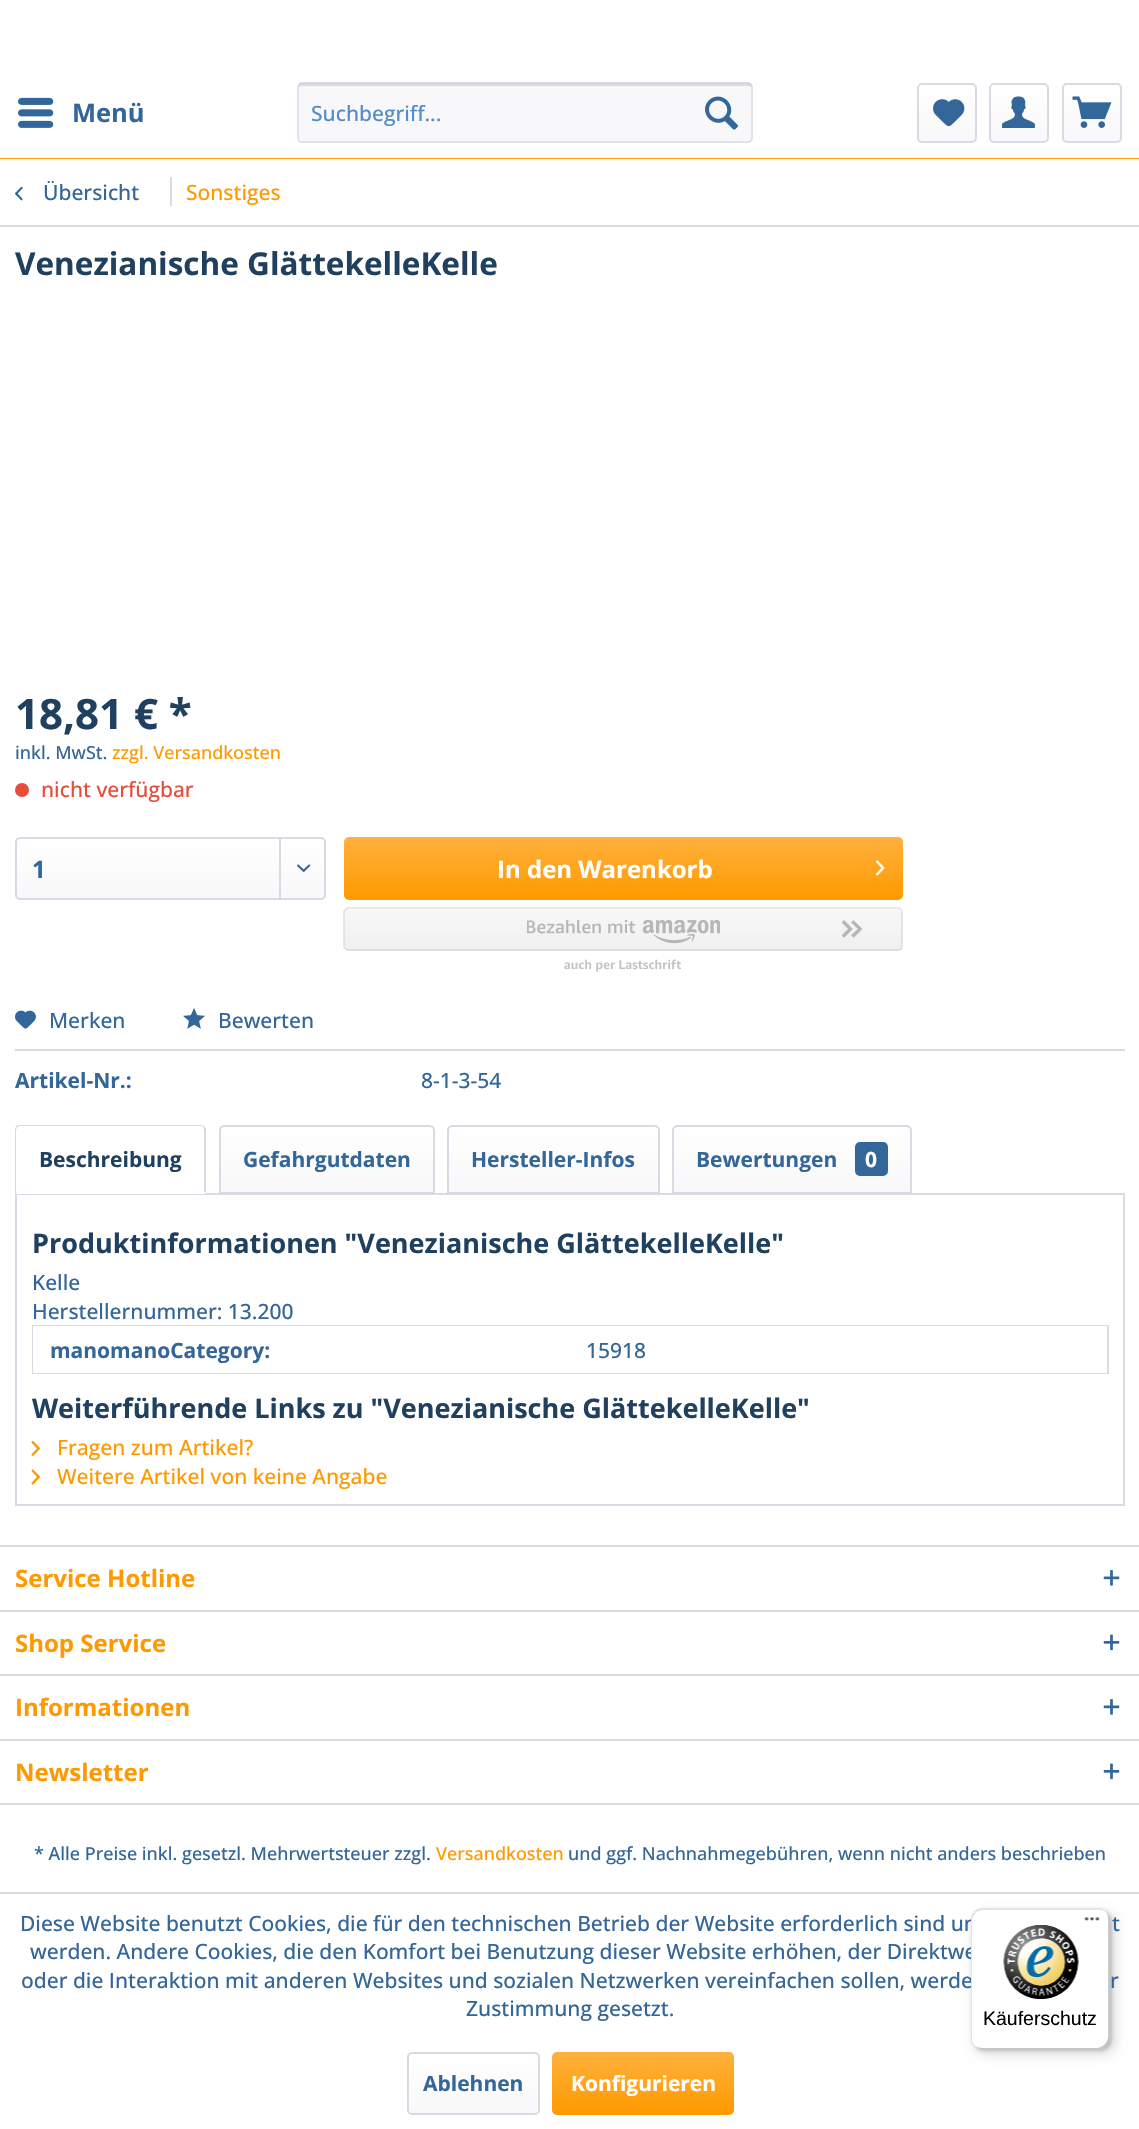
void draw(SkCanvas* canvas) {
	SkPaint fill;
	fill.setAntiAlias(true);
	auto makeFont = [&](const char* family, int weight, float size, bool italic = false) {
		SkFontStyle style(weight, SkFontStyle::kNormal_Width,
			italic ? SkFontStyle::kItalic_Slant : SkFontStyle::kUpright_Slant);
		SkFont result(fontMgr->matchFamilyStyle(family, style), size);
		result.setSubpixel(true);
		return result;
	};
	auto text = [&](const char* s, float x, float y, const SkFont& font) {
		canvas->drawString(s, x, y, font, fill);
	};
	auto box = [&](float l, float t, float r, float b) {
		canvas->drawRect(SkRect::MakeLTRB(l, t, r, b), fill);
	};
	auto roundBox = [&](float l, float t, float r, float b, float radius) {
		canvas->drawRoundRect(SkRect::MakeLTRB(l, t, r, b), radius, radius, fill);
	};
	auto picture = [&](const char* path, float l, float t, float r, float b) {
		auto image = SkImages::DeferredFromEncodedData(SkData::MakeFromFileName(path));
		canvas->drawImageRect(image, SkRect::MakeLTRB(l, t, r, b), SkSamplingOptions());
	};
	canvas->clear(0xFFFFFFFF);
	fill.setColor(0xFFFF9900);
	box(0, 158, 1139, 159);
	picture("image0.png", 18, 97, 54, 128);
	fill.setColor(0xFFF8F8FA);
	roundBox(297, 83, 753, 143, 5);
	fill.setColor(0xFFDADAE5);
	canvas->drawPath(SkPathBuilder().moveTo(302, 86).lineTo(748, 86).cubicTo(750, 86, 752, 87, 752, 88).lineTo(752, 87).cubicTo(752, 85, 751, 84, 749, 84).lineTo(302, 84).cubicTo(300, 84, 299, 85, 299, 87).close().detach(), fill);
	fill.setStyle(SkPaint::kStroke_Style);
	fill.setStrokeWidth(1.5f);
	fill.setColor(0xFFCBCBDB);
	canvas->drawPath(SkPathBuilder().moveTo(299, 84.5f).lineTo(301.5f, 83).lineTo(748.5f, 83).lineTo(751, 84.5f).detach(), fill);
	fill.setColor(0xFFDADAE5);
	canvas->drawPath(SkPathBuilder().moveTo(751, 84.5f).cubicTo(752, 85, 752, 86, 752, 87).lineTo(752, 138).cubicTo(752, 139, 752, 140, 751, 140.5f).cubicTo(750.5f, 141.5f, 749.5f, 142, 748.5f, 142).lineTo(301.5f, 142).cubicTo(300.5f, 142, 299.5f, 141.5f, 299, 140.5f).cubicTo(298, 140, 298, 139, 298, 138).lineTo(298, 87).cubicTo(298, 86, 298, 85, 299, 84.5f).detach(), fill);
	picture("image1.png", 705, 96, 738, 130);
	fill.setStyle(SkPaint::kFill_Style);
	{
		const SkColor colors[] = {0xFFFFFFFF, 0xFFF8F8FA};
		const float stops[] = {0, 1};
		const SkPoint ends[] = {{947, 84}, {947, 141}};
		fill.setShader(SkGradientShader::MakeLinear(ends, colors, stops, 2, SkTileMode::kClamp));
		fill.setAlpha(255);
	}
	roundBox(918, 84, 975, 141, 3);
	fill.setStyle(SkPaint::kStroke_Style);
	fill.setStrokeWidth(2);
	fill.setShader(nullptr);
	fill.setColor(0xFFDADAE5);
	canvas->drawRoundRect(SkRect::MakeLTRB(918, 84, 976, 142), 4, 4, fill);
	picture("image2.png", 933, 99, 965, 127);
	fill.setStyle(SkPaint::kFill_Style);
	{
		const SkColor colors[] = {0xFFFFFFFF, 0xFFF8F8FA};
		const float stops[] = {0, 1};
		const SkPoint ends[] = {{1019, 84}, {1019, 141}};
		fill.setShader(SkGradientShader::MakeLinear(ends, colors, stops, 2, SkTileMode::kClamp));
		fill.setAlpha(255);
	}
	roundBox(990, 84, 1047, 141, 3);
	fill.setStyle(SkPaint::kStroke_Style);
	fill.setShader(nullptr);
	fill.setColor(0xFFDADAE5);
	canvas->drawRoundRect(SkRect::MakeLTRB(990, 84, 1048, 142), 4, 4, fill);
	picture("image3.png", 1002, 96, 1035, 128);
	fill.setStyle(SkPaint::kFill_Style);
	{
		const SkColor colors[] = {0xFFFFFFFF, 0xFFF8F8FA};
		const float stops[] = {0, 1};
		const SkPoint ends[] = {{1092, 84}, {1092, 141}};
		fill.setShader(SkGradientShader::MakeLinear(ends, colors, stops, 2, SkTileMode::kClamp));
		fill.setAlpha(255);
	}
	roundBox(1064, 84, 1121, 141, 3);
	fill.setStyle(SkPaint::kStroke_Style);
	fill.setShader(nullptr);
	fill.setColor(0xFFDADAE5);
	canvas->drawRoundRect(SkRect::MakeLTRB(1063, 84, 1121, 142), 4, 4, fill);
	picture("image4.png", 1072, 96, 1112, 128);
	fill.setStyle(SkPaint::kFill_Style);
	box(0, 225, 1139, 227);
	picture("image5.png", 15, 186, 23, 201);
	box(170, 177, 172, 206);
	fill.setColor(0xFFE74C3C);
	canvas->drawCircle(22, 790, 7, fill);
	{
		const SkColor colors[] = {0xFFFFFFFF, 0xFFF8F8FA};
		const float stops[] = {0, 1};
		const SkPoint ends[] = {{170, 839}, {170, 899}};
		fill.setShader(SkGradientShader::MakeLinear(ends, colors, stops, 2, SkTileMode::kClamp));
		fill.setAlpha(255);
	}
	roundBox(17, 839, 324, 899, 3);
	fill.setStyle(SkPaint::kStroke_Style);
	fill.setShader(nullptr);
	fill.setColor(0xFFDADAE5);
	canvas->drawRoundRect(SkRect::MakeLTRB(16, 838, 325, 899), 4, 4, fill);
	fill.setStyle(SkPaint::kFill_Style);
	box(279, 839, 281, 899);
	picture("image6.png", 297, 864, 311, 872);
	{
		const SkColor colors[] = {0xFFFFB13D, 0xFFFF9900};
		const float stops[] = {0, 1};
		const SkPoint ends[] = {{623, 837}, {623, 900}};
		fill.setShader(SkGradientShader::MakeLinear(ends, colors, stops, 2, SkTileMode::kClamp));
		fill.setAlpha(255);
	}
	roundBox(344, 837, 903, 900, 5);
	picture("image7.png", 876, 860, 885, 876);
	canvas->save();
	canvas->clipPath(SkPathBuilder().moveTo(349, 908).lineTo(898, 908).cubicTo(901, 908, 903, 910, 903, 913).lineTo(903, 946).cubicTo(903, 949, 901, 951, 898, 951).lineTo(349, 951).cubicTo(346, 951, 344, 949, 344, 946).lineTo(344, 913).cubicTo(344, 910, 346, 908, 349, 908).close().detach(), true);
	{
		const SkColor colors[] = {0xFFF7F7F7, 0xFFF0F0F0};
		const float stops[] = {0, 1};
		const SkPoint ends[] = {{623, 909}, {623, 950}};
		fill.setShader(SkGradientShader::MakeLinear(ends, colors, stops, 2, SkTileMode::kClamp));
		fill.setAlpha(255);
	}
	box(344, 909, 903, 950);
	{
		const SkColor colors[] = {0xFFF7F7F7, 0xFFF0F0F0};
		const float stops[] = {0, 1};
		const SkPoint ends[] = {{623, 950}, {623, 990}};
		fill.setShader(SkGradientShader::MakeLinear(ends, colors, stops, 2, SkTileMode::kClamp));
		fill.setAlpha(255);
	}
	box(344, 950, 903, 951);
	canvas->restore();
	fill.setShader(nullptr);
	fill.setColor(0xFFFAFAFA);
	canvas->drawPath(SkPathBuilder().moveTo(348, 910).lineTo(898, 910).cubicTo(900, 910, 902, 912, 902, 914).cubicTo(902, 912, 902, 909, 899, 909).lineTo(348, 909).lineTo(346, 910).lineTo(345, 914).cubicTo(345, 912, 346, 910, 348, 910).close().detach(), fill);
	fill.setStyle(SkPaint::kStroke_Style);
	fill.setStrokeWidth(1.5f);
	fill.setColor(0xFFE1E1E1);
	canvas->drawPath(SkPathBuilder().moveTo(345.5f, 909.5f).lineTo(348, 908).lineTo(898.5f, 908).lineTo(901, 909.5f).detach(), fill);
	fill.setColor(0xFFDFDFDF);
	canvas->drawPath(SkPathBuilder().moveTo(901, 909.5f).cubicTo(902, 910, 902, 911, 902, 912).lineTo(902, 946.5f).cubicTo(902, 947.5f, 902, 948.5f, 901, 949).detach(), fill);
	fill.setColor(0xFFDADADA);
	canvas->drawPath(SkPathBuilder().moveTo(901, 949).lineTo(898.5f, 950).lineTo(348, 950).lineTo(345.5f, 949).detach(), fill);
	fill.setColor(0xFFDFDFDF);
	canvas->drawPath(SkPathBuilder().moveTo(345.5f, 949).cubicTo(344.5f, 948.5f, 344, 947.5f, 344, 946.5f).lineTo(344, 912).cubicTo(344, 911, 344.5f, 910, 345.5f, 909.5f).detach(), fill);
	picture("image8.png", 527, 920, 720, 944);
	picture("image9.png", 842, 920, 863, 938);
	picture("image10.png", 564, 959, 681, 972);
	fill.setStyle(SkPaint::kFill_Style);
	fill.setColor(0xFFDADAE5);
	box(15, 1049, 1125, 1051);
	picture("image11.png", 15, 1010, 36, 1029);
	picture("image12.png", 183, 1008, 205, 1029);
	fill.setStyle(SkPaint::kStroke_Style);
	fill.setStrokeWidth(2);
	canvas->drawRect(SkRect::MakeLTRB(16, 1194, 1124, 1505), fill);
	fill.setStyle(SkPaint::kFill_Style);
	fill.setColor(0xFFFFFFFF);
	canvas->drawPath(SkPathBuilder().moveTo(20, 1125).lineTo(201, 1125).cubicTo(204, 1125, 206, 1127, 206, 1130).lineTo(206, 1194).lineTo(15, 1194).lineTo(15, 1130).cubicTo(15, 1127, 17, 1125, 20, 1125).close().detach(), fill);
	fill.setColor(0xFFDADAE5);
	canvas->drawPath(SkPathBuilder().moveTo(20, 1125).cubicTo(18, 1125, 17, 1126, 16, 1126).lineTo(17, 1127).lineTo(20, 1126).lineTo(202, 1126).lineTo(203, 1127).lineTo(204, 1126).lineTo(201, 1125).close().detach(), fill);
	canvas->drawPath(SkPathBuilder().moveTo(206, 1128).lineTo(206, 1194).lineTo(204, 1192).lineTo(204, 1130).lineTo(203, 1127).lineTo(204, 1126).close().detach(), fill);
	fill.setColor(0xFFFFFFFF);
	canvas->drawPath(SkPathBuilder().moveTo(206, 1194).lineTo(204, 1192).lineTo(17, 1192).lineTo(15, 1194).close().detach(), fill);
	fill.setColor(0xFFDADAE5);
	canvas->drawPath(SkPathBuilder().moveTo(15, 1194).lineTo(17, 1192).lineTo(16, 1192).lineTo(16, 1130).lineTo(17, 1127).lineTo(16, 1126).cubicTo(16, 1127, 15, 1128, 15, 1130).close().detach(), fill);
	{
		const SkColor colors[] = {0xFFFFFFFF, 0xFFF8F8FA};
		const float stops[] = {0, 1};
		const SkPoint ends[] = {{327, 1127}, {327, 1193}};
		fill.setShader(SkGradientShader::MakeLinear(ends, colors, stops, 2, SkTileMode::kClamp));
		fill.setAlpha(255);
	}
	canvas->drawPath(SkPathBuilder().moveTo(224, 1127).lineTo(431, 1127).cubicTo(432.5f, 1127, 434, 1128.5f, 434, 1130).lineTo(434, 1193).lineTo(221, 1193).lineTo(221, 1130).cubicTo(221, 1128.5f, 222.5f, 1127, 224, 1127).close().detach(), fill);
	fill.setStyle(SkPaint::kStroke_Style);
	fill.setShader(nullptr);
	fill.setColor(0xFFDADAE5);
	canvas->drawPath(SkPathBuilder().moveTo(224, 1126).lineTo(430, 1126).cubicTo(432, 1126, 434, 1128, 434, 1130).lineTo(434, 1193).lineTo(220, 1193).lineTo(220, 1130).cubicTo(220, 1128, 222, 1126, 224, 1126).close().detach(), fill);
	fill.setStyle(SkPaint::kFill_Style);
	{
		const SkColor colors[] = {0xFFFFFFFF, 0xFFF8F8FA};
		const float stops[] = {0, 1};
		const SkPoint ends[] = {{554, 1127}, {554, 1193}};
		fill.setShader(SkGradientShader::MakeLinear(ends, colors, stops, 2, SkTileMode::kClamp));
		fill.setAlpha(255);
	}
	canvas->drawPath(SkPathBuilder().moveTo(452, 1127).lineTo(656, 1127).cubicTo(657.5f, 1127, 659, 1128.5f, 659, 1130).lineTo(659, 1193).lineTo(449, 1193).lineTo(449, 1130).cubicTo(449, 1128.5f, 450.5f, 1127, 452, 1127).close().detach(), fill);
	fill.setStyle(SkPaint::kStroke_Style);
	fill.setShader(nullptr);
	fill.setColor(0xFFDADAE5);
	canvas->drawPath(SkPathBuilder().moveTo(452, 1126).lineTo(655, 1126).cubicTo(657, 1126, 659, 1128, 659, 1130).lineTo(659, 1193).lineTo(448, 1193).lineTo(448, 1130).cubicTo(448, 1128, 450, 1126, 452, 1126).close().detach(), fill);
	fill.setStyle(SkPaint::kFill_Style);
	{
		const SkColor colors[] = {0xFFFFFFFF, 0xFFF8F8FA};
		const float stops[] = {0, 1};
		const SkPoint ends[] = {{792, 1127}, {792, 1193}};
		fill.setShader(SkGradientShader::MakeLinear(ends, colors, stops, 2, SkTileMode::kClamp));
		fill.setAlpha(255);
	}
	canvas->drawPath(SkPathBuilder().moveTo(677, 1127).lineTo(908, 1127).cubicTo(909.5f, 1127, 911, 1128.5f, 911, 1130).lineTo(911, 1193).lineTo(674, 1193).lineTo(674, 1130).cubicTo(674, 1128.5f, 675.5f, 1127, 677, 1127).close().detach(), fill);
	fill.setStyle(SkPaint::kStroke_Style);
	fill.setShader(nullptr);
	fill.setColor(0xFFDADAE5);
	canvas->drawPath(SkPathBuilder().moveTo(677, 1126).lineTo(907, 1126).cubicTo(909, 1126, 911, 1128, 911, 1130).lineTo(911, 1193).lineTo(673, 1193).lineTo(673, 1130).cubicTo(673, 1128, 675, 1126, 677, 1126).close().detach(), fill);
	fill.setStyle(SkPaint::kFill_Style);
	fill.setColor(0xFF336699);
	roundBox(855, 1142, 888, 1176, 5);
	fill.setStyle(SkPaint::kStroke_Style);
	fill.setColor(0xFFDADAE5);
	canvas->drawRect(SkRect::MakeLTRB(33, 1326, 1108, 1373), fill);
	fill.setStyle(SkPaint::kFill_Style);
	fill.setColor(0xFFFFFFFF);
	box(33, 1326, 1107, 1373);
	picture("image13.png", 31, 1441, 40, 1456);
	picture("image14.png", 31, 1469, 40, 1485);
	fill.setColor(0xFFDADAE5);
	box(0, 1545, 1139, 1547);
	picture("image15.png", 1103, 1570, 1120, 1586);
	box(0, 1610, 1139, 1612);
	picture("image16.png", 1103, 1634, 1120, 1651);
	box(0, 1674, 1139, 1676);
	picture("image15.png", 1103, 1699, 1120, 1715);
	box(0, 1739, 1139, 1741);
	box(0, 1803, 1139, 1805);
	picture("image16.png", 1103, 1763, 1120, 1780);
	box(0, 1892, 1139, 1894);
	{
		const SkColor colors[] = {0xFFFFFFFF, 0xFFF8F8FA};
		const float stops[] = {0, 1};
		const SkPoint ends[] = {{473, 2054}, {473, 2114}};
		fill.setShader(SkGradientShader::MakeLinear(ends, colors, stops, 2, SkTileMode::kClamp));
		fill.setAlpha(255);
	}
	roundBox(408, 2054, 539, 2114, 3);
	fill.setStyle(SkPaint::kStroke_Style);
	fill.setShader(nullptr);
	fill.setColor(0xFFDADAE5);
	canvas->drawRoundRect(SkRect::MakeLTRB(408, 2053, 539, 2114), 4, 4, fill);
	fill.setStyle(SkPaint::kFill_Style);
	{
		const SkColor colors[] = {0xFFFFB13D, 0xFFFF9900};
		const float stops[] = {0, 1};
		const SkPoint ends[] = {{643, 2052}, {643, 2115}};
		fill.setShader(SkGradientShader::MakeLinear(ends, colors, stops, 2, SkTileMode::kClamp));
		fill.setAlpha(255);
	}
	roundBox(552, 2052, 734, 2115, 5);
	fill.setShader(nullptr);
	fill.setColor(0x26000000);
	fill.setMaskFilter(SkMaskFilter::MakeBlur(kNormal_SkBlurStyle, 6));
	canvas->drawRoundRect(SkRect::MakeLTRB(975, 1913, 1115, 2054), 12, 12, fill);
	fill.setMaskFilter(nullptr);
	fill.setMaskFilter(SkMaskFilter::MakeBlur(kNormal_SkBlurStyle, 1.5f));
	canvas->drawRoundRect(SkRect::MakeLTRB(972, 1910, 1112, 2051), 12, 12, fill);
	fill.setMaskFilter(nullptr);
	auto font1 = makeFont("Open Sans", 700, 25.5f);
	fill.setColor(0xFF336699);
	text("Menü", 72, 122, font1);
	auto font2 = makeFont("Open Sans", 500, 21);
	fill.setColor(0xFF538CC6);
	text("Suchbegriff...", 311, 121, font2);
	fill.setColor(0xFF336699);
	text("Übersicht", 43, 200, font2);
	fill.setColor(0xFFFF9900);
	text("Sonstiges", 186, 200, font2);
	auto font3 = makeFont("Open Sans", 700, 31.5f);
	fill.setColor(0xFF204060);
	text("Venezianische GlättekelleKelle", 15, 275, font3);
	auto font4 = makeFont("Open Sans", 700, 42);
	text("18,81 € *", 15, 729, font4);
	auto font5 = makeFont("Open Sans", 500, 18);
	fill.setColor(0xFF336699);
	text("inkl. MwSt.", 15, 759, font5);
	fill.setColor(0xFFFF9900);
	text("zzgl. Versandkosten", 112, 759, font5);
	fill.setColor(0xFFE74C3C);
	text("nicht verfügbar", 41, 797, font2);
	auto font6 = makeFont("Open Sans", 700, 24);
	fill.setColor(0xFF336699);
	text("1", 32, 878, font6);
	fill.setColor(0xFFFFFFFF);
	text("In den Warenkorb", 497, 878, font6);
	fill.setColor(0xFF336699);
	text("Merken", 49, 1028, font2);
	text("Bewerten", 218, 1028, font2);
	auto font7 = makeFont("Open Sans", 700, 21);
	text("Artikel-Nr.:", 15, 1088, font7);
	text("8-1-3-54", 421, 1088, font2);
	fill.setColor(0xFF204060);
	text("Beschreibung", 39, 1167, font7);
	fill.setColor(0xFF336699);
	text("Gefahrgutdaten", 243, 1167, font7);
	text("Hersteller-Infos", 471, 1167, font7);
	text("Bewertungen", 696, 1167, font7);
	fill.setColor(0xFFFFFFFF);
	text("0", 865, 1167, font7);
	auto font8 = makeFont("Open Sans", 700, 27);
	fill.setColor(0xFF204060);
	text("Produktinformationen \"Venezianische GlättekelleKelle\"", 32, 1253, font8);
	fill.setColor(0xFF336699);
	text("Kelle", 32, 1290, font2);
	text("Herstellernummer: 13.200", 32, 1319, font2);
	text("manomanoCategory:", 50, 1358, font7);
	text("15918", 586, 1358, font2);
	fill.setColor(0xFF204060);
	text("Weiterführende Links zu \"Venezianische GlättekelleKelle\"", 32, 1418, font8);
	fill.setColor(0xFFFF9900);
	text("Fragen zum Artikel?", 57, 1455, font2);
	text("Weitere Artikel von keine Angabe", 57, 1484, font2);
	text("Service Hotline", 15, 1587, font6);
	text("Shop Service", 15, 1652, font6);
	text("Informationen", 15, 1716, font6);
	text("Newsletter", 15, 1781, font6);
	fill.setColor(0xFF336699);
	text("* Alle Preise inkl. gesetzl. Mehrwertsteuer zzgl.", 34, 1860, font5);
	fill.setColor(0xFFFF9900);
	text("Versandkosten", 436, 1860, font5);
	fill.setColor(0xFF336699);
	text("und ggf. Nachnahmegebühren, wenn nicht anders beschrieben", 568, 1860, font5);
	text("Diese Website benutzt Cookies, die für den technischen Betrieb der Website erforderlich sind un", 20, 1931, font2);
	text("t", 1112, 1931, font2);
	text("werden. Andere Cookies, die den Komfort bei Benutzung dieser Website erhöhen, der Direktwe", 30, 1959, font2);
	text("oder die Interaktion mit anderen Websites und sozialen Netzwerken vereinfachen sollen, werde", 21, 1988, font2);
	text("r", 1110, 1988, font2);
	text("Zustimmung gesetzt.", 466, 2016, font2);
	text("Ablehnen", 423, 2091, font7);
	fill.setColor(0xFFFFFFFF);
	text("Konfigurieren", 571, 2091, font7);
	roundBox(971, 1908, 1110, 2049, 12);
	fill.setColor(0x1A000000);
	canvas->drawPath(SkPathBuilder().moveTo(984, 1910).lineTo(1100, 1910).cubicTo(1103, 1910, 1105, 1911, 1108, 1913).cubicTo(1105, 1910, 1102, 1908, 1098, 1908).lineTo(983, 1908).cubicTo(976, 1908, 971, 1913, 971, 1920).lineTo(971, 2037).cubicTo(971, 2040, 972, 2043, 974, 2045).cubicTo(973, 2043, 972, 2041, 972, 2038).lineTo(972, 1922).cubicTo(972, 1915, 977, 1910, 984, 1910).close().detach(), fill);
	fill.setColor(0x33000000);
	canvas->drawPath(SkPathBuilder().moveTo(977, 2047).cubicTo(978, 2048, 981, 2049, 983, 2049).lineTo(1098, 2049).cubicTo(1105, 2049, 1110, 2044, 1110, 2037).lineTo(1110, 1920).cubicTo(1110, 1916, 1108, 1913, 1105, 1910).cubicTo(1107, 1913, 1108, 1915, 1108, 1918).lineTo(1108, 2036).cubicTo(1108, 2042, 1103, 2048, 1096, 2048).lineTo(981, 2048).close().detach(), fill);
	fill.setColor(0x33323232);
	canvas->drawPath(SkPathBuilder().moveTo(975, 2046).cubicTo(977, 2048, 980, 2049, 983, 2049).lineTo(1098, 2049).cubicTo(1105, 2049, 1110, 2044, 1110, 2037).lineTo(1110, 1920).cubicTo(1110, 1917, 1109, 1914, 1107, 1912).cubicTo(1108, 1914, 1109, 1916, 1109, 1919).lineTo(1109, 2036).cubicTo(1109, 2043, 1104, 2048, 1097, 2048).lineTo(982, 2048).cubicTo(979, 2048, 977, 2047, 975, 2046).close().detach(), fill);
	fill.setColor(0x4DFFFFFF);
	canvas->drawPath(SkPathBuilder().moveTo(975, 2046).cubicTo(977, 2048, 980, 2049, 983, 2049).lineTo(1098, 2049).cubicTo(1105, 2049, 1110, 2044, 1110, 2037).lineTo(1110, 1920).cubicTo(1110, 1916, 1108, 1913, 1106, 1911).cubicTo(1108, 1913, 1109, 1916, 1109, 1919).lineTo(1109, 2036).cubicTo(1109, 2043, 1104, 2048, 1097, 2048).lineTo(982, 2048).cubicTo(979, 2048, 977, 2047, 975, 2046).close().detach(), fill);
	picture("image17.png", 1084, 1917, 1100, 1921);
	picture("image18.png", 1003, 1925, 1079, 2000);
	auto font9 = makeFont("Liberation Sans", 400, 19.5f);
	fill.setColor(0xFF000000);
	text("Käuferschutz", 983, 2025, font9);
}
